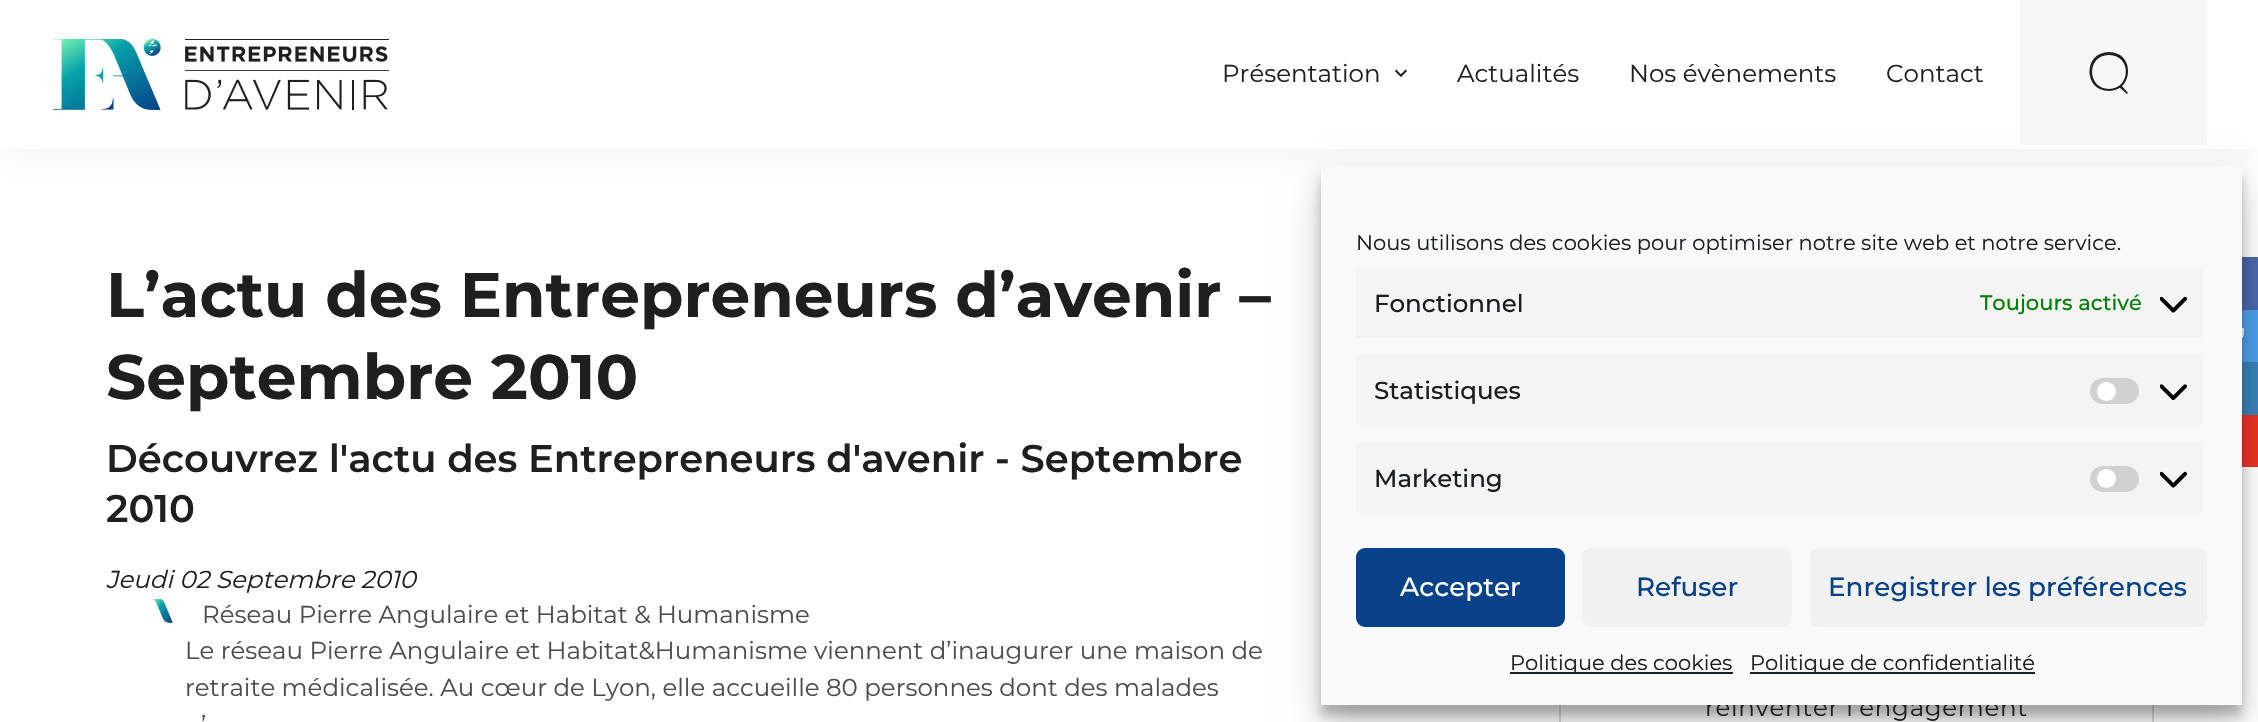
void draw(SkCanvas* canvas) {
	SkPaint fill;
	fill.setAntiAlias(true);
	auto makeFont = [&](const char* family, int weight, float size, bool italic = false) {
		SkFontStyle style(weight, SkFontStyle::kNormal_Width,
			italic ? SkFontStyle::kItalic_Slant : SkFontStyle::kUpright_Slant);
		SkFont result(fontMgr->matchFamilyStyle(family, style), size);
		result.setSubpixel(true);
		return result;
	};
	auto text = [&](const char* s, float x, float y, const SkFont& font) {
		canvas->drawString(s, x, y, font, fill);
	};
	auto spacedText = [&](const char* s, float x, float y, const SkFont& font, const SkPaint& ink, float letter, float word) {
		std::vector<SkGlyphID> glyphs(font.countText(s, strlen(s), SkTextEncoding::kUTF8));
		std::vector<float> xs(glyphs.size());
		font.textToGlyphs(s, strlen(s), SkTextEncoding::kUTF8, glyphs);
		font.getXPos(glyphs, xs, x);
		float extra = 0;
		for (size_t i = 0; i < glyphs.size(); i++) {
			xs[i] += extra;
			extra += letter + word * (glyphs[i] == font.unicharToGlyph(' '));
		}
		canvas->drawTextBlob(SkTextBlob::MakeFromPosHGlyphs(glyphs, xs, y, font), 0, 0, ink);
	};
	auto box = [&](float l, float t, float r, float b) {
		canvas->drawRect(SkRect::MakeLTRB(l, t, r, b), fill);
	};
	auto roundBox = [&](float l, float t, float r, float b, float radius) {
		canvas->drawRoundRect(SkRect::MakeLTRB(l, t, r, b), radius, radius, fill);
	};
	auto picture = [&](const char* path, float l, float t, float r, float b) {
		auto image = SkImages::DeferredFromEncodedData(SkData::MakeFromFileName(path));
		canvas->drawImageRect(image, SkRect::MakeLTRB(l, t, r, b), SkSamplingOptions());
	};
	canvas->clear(0xFFFFFFFF);
	fill.setColor(0x1A4A5460);
	fill.setMaskFilter(SkMaskFilter::MakeBlur(kNormal_SkBlurStyle, 17.5f));
	canvas->drawRect(SkRect::MakeLTRB(0, 0, 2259, 149), fill);
	fill.setMaskFilter(nullptr);
	fill.setColor(0xFFFFFFFF);
	box(0, 0, 2258, 149);
	picture("image0.png", 53, 39, 389, 110);
	picture("image1.png", 1394, 69, 1407, 77);
	fill.setColor(0xFFF6F7F8);
	box(2020, 0, 2207, 145);
	fill.setColor(0xFF1F1F1F);
	canvas->drawPath(SkPathBuilder().moveTo(2109, 91).cubicTo(2083, 91, 2083, 52, 2109, 52).cubicTo(2135, 52, 2134, 91, 2109, 91).close().moveTo(2109, 55).cubicTo(2086, 55, 2087, 89, 2109, 89).cubicTo(2131, 89, 2132, 55, 2109, 55).close().moveTo(2119, 87).lineTo(2121, 85).lineTo(2128, 93).lineTo(2127, 94).close().detach(), fill);
	fill.setStyle(SkPaint::kStroke_Style);
	fill.setStrokeWidth(2);
	fill.setColor(0xFFDADADA);
	canvas->drawRect(SkRect::MakeLTRB(1560, 255, 2153, 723), fill);
	fill.setStyle(SkPaint::kFill_Style);
	fill.setColor(0xFF4A66AC);
	box(2242, 257, 2258, 310);
	fill.setColor(0xFF4C9FEC);
	box(2242, 310, 2258, 362);
	picture("image5.png", 2242, 328, 2244, 339);
	fill.setColor(0xFF3982BA);
	box(2242, 362, 2258, 415);
	fill.setColor(0xFFEA3324);
	box(2242, 415, 2258, 467);
	fill.setColor(0x3B000000);
	fill.setMaskFilter(SkMaskFilter::MakeBlur(kNormal_SkBlurStyle, 5));
	canvas->drawRect(SkRect::MakeLTRB(1321, 177, 2242, 716), fill);
	fill.setMaskFilter(nullptr);
	fill.setColor(0x30000000);
	fill.setMaskFilter(SkMaskFilter::MakeBlur(kNormal_SkBlurStyle, 17.5f));
	canvas->drawRect(SkRect::MakeLTRB(1321, 184, 2242, 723), fill);
	fill.setMaskFilter(nullptr);
	picture("image4.png", 153, 599, 173, 623);
	auto font1 = makeFont("Montserrat", 400, 24.5f);
	fill.setColor(0xFF1F1F1F);
	text("Présentation", 1222, 82, font1);
	text("Actualités", 1457, 82, font1);
	text("Nos évènements", 1629, 82, font1);
	text("Contact", 1886, 82, font1);
	auto font2 = makeFont("Montserrat", 700, 63);
	text("L’actu des Entrepreneurs d’avenir –", 106, 317, font2);
	text("Septembre 2010", 106, 399, font2);
	auto font3 = makeFont("Montserrat", 600, 38.5f);
	text("Découvrez l'actu des Entrepreneurs d'avenir - Septembre", 106, 472, font3);
	text("2010", 106, 522, font3);
	auto font4 = makeFont("Montserrat", 400, 24.5f, true);
	text("Jeudi 02 Septembre 2010", 106, 588, font4);
	fill.setColor(0xFF4C4C4C);
	text("Réseau Pierre Angulaire et Habitat & Humanisme", 202, 623, font1);
	text("Le réseau Pierre Angulaire et Habitat&Humanisme viennent d’inaugurer une maison de", 185, 659, font1);
	text("retraite médicalisée. Au cœur de Lyon, elle accueille 80 personnes dont des malades", 185, 696, font1);
	text("’", 201, 733, font1);
	fill.setColor(0xFF1F1F1F);
	spacedText("réinventer l’engagement", 1705, 716, font1, fill, 0.7f, 0);
	fill.setColor(0xFFF9F9F9);
	box(1321, 166, 2242, 705);
	fill.setColor(0xFFF4F4F4);
	box(1356, 443, 2203, 513);
	picture("image2.png", 2160, 471, 2187, 488);
	fill.setColor(0xFFD1D1D1);
	roundBox(2090, 466, 2139, 492, 13);
	fill.setColor(0xFFFFFFFF);
	canvas->drawCircle(2106.5f, 478.5f, 9.5f, fill);
	fill.setColor(0xFFF4F4F4);
	box(1356, 355, 2203, 425);
	picture("image3.png", 2160, 384, 2187, 401);
	fill.setColor(0xFFD1D1D1);
	roundBox(2090, 378, 2139, 404, 13);
	fill.setColor(0xFFFFFFFF);
	canvas->drawCircle(2106.5f, 391.5f, 9.5f, fill);
	fill.setColor(0xFFF4F4F4);
	box(1356, 268, 2203, 338);
	picture("image2.png", 2160, 296, 2187, 313);
	auto font5 = makeFont("Montserrat", 500, 24.5f);
	fill.setColor(0xFF191E23);
	text("Marketing", 1374, 487, font5);
	text("Statistiques", 1374, 399, font5);
	auto font6 = makeFont("Montserrat", 500, 21);
	fill.setColor(0xFF008000);
	text("Toujours activé", 1980, 310, font6);
	fill.setColor(0xFF191E23);
	text("Fonctionnel", 1374, 312, font5);
	auto font7 = makeFont("Montserrat", 400, 21);
	text("Nous utilisons des cookies pour optimiser notre site web et notre service.", 1356, 250, font7);
	box(1750, 672, 2035, 674);
	text("Politique de confidentialité", 1750, 670, font7);
	box(1510, 672, 1733, 674);
	text("Politique des cookies", 1510, 670, font7);
	fill.setColor(0xFFF1F1F1);
	roundBox(1810, 548, 2207, 627, 9);
	auto font8 = makeFont("Montserrat", 500, 26.25f);
	fill.setColor(0xFF064189);
	text("Enregistrer les préférences", 1828, 596, font8);
	fill.setColor(0xFFF1F1F1);
	roundBox(1582, 548, 1792, 627, 9);
	fill.setColor(0xFF064189);
	text("Refuser", 1636, 596, font8);
	canvas->drawRoundRect(SkRect::MakeLTRB(1357, 549, 1564, 626), 8, 8, fill);
	fill.setStyle(SkPaint::kStroke_Style);
	canvas->drawRoundRect(SkRect::MakeLTRB(1357, 549, 1564, 626), 8, 8, fill);
	fill.setStyle(SkPaint::kFill_Style);
	fill.setColor(0xFFFFFFFF);
	text("Accepter", 1400, 596, font8);
}
